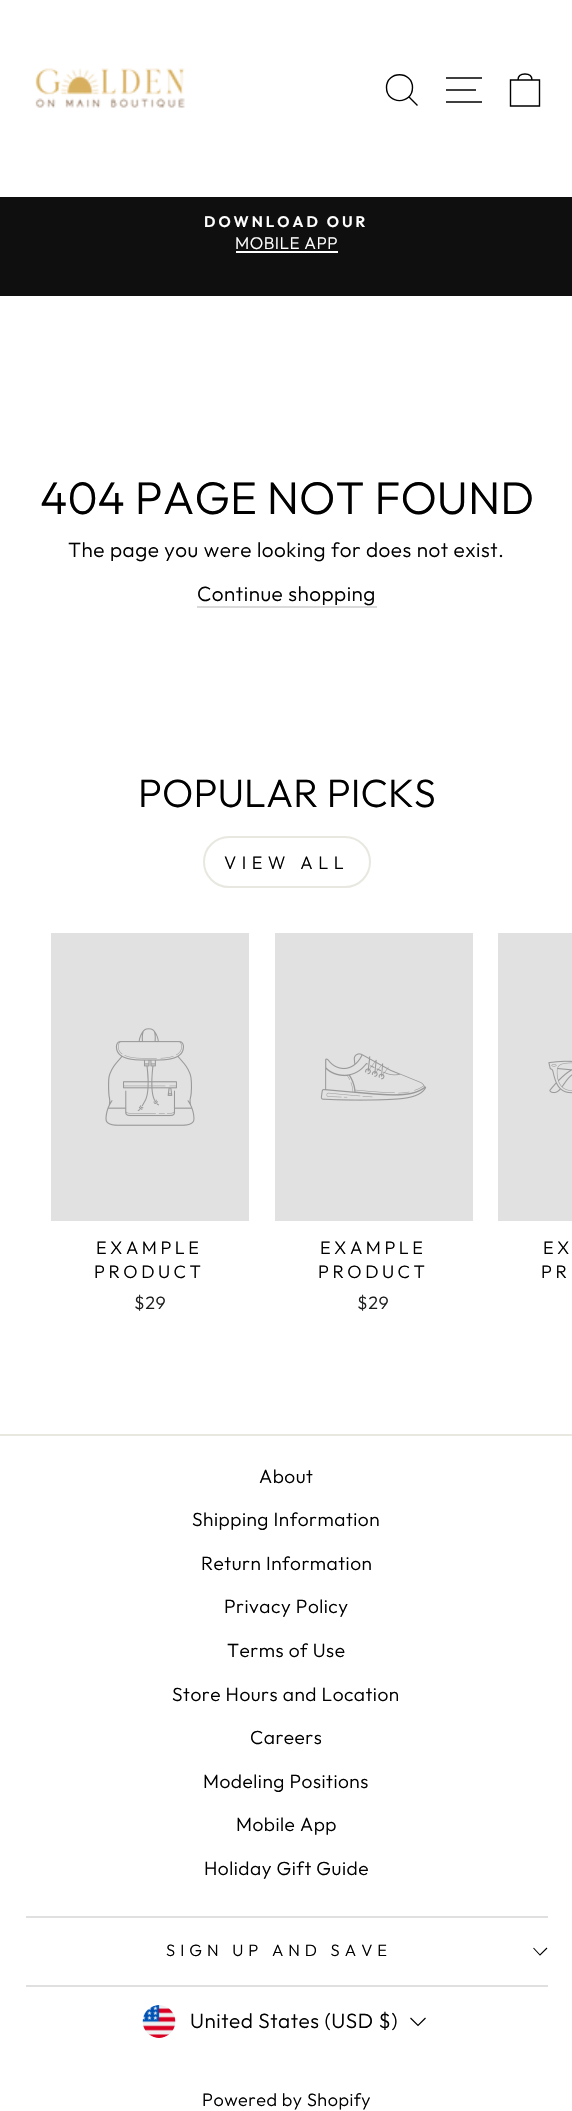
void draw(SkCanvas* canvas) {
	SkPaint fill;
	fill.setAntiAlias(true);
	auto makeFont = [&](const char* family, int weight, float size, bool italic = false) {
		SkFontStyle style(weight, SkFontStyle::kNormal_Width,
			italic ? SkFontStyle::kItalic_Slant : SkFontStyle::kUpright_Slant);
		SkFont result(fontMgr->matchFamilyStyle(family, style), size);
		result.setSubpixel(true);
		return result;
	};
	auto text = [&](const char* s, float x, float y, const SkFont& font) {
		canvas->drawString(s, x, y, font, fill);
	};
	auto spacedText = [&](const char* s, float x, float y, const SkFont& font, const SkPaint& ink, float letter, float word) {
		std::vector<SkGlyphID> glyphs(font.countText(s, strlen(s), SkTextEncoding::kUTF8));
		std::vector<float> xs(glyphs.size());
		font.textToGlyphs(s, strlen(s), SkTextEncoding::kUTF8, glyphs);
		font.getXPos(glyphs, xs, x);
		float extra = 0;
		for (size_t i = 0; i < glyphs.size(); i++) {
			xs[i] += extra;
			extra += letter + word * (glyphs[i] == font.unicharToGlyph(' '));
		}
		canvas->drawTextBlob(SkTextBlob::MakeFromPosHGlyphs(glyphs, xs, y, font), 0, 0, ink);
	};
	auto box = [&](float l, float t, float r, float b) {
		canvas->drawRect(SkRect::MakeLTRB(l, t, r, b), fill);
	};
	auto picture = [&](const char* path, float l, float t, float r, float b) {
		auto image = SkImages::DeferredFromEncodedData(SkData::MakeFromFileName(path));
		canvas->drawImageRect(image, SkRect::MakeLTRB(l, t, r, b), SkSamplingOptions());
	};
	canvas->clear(0xFFFFFFFF);
	fill.setColor(0xFF0F0F0F);
	box(0, 197, 572, 296);
	fill.setColor(0x33000000);
	fill.setMaskFilter(SkMaskFilter::MakeBlur(kNormal_SkBlurStyle, 1));
	canvas->drawRect(SkRect::MakeLTRB(0, -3, 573, 197), fill);
	fill.setMaskFilter(nullptr);
	fill.setColor(0xFFFFFFFF);
	box(0, 0, 572, 197);
	picture("image0.png", 35, 68, 185, 108);
	fill.setStyle(SkPaint::kStroke_Style);
	fill.setStrokeWidth(1.4f);
	fill.setColor(0xFF000000);
	canvas->drawPath(SkPathBuilder().moveTo(412.5f, 87.5f).cubicTo(412.5f, 105, 386.5f, 105, 386.5f, 87.5f).cubicTo(386.5f, 70.5f, 412.5f, 70.5f, 412.5f, 87.5f).close().moveTo(417.5f, 105.5f).lineTo(409, 97).detach(), fill);
	canvas->drawPath(SkPathBuilder().moveTo(446, 78).lineTo(482, 78).moveTo(446, 90).lineTo(476, 90).moveTo(446, 102).lineTo(482, 102).detach(), fill);
	canvas->drawPath(SkPathBuilder().moveTo(510.5f, 80).lineTo(539.5f, 80).lineTo(539.5f, 106).lineTo(510.5f, 106).close().moveTo(518, 80).cubicTo(518, 75, 521, 74, 525, 74).cubicTo(529, 74, 532, 75, 532, 80).detach(), fill);
	fill.setStyle(SkPaint::kFill_Style);
	fill.setColor(0xFFFFFFFF);
	box(236, 251, 338, 253);
	fill.setColor(0xFFD9D9D9);
	box(197, 606, 377, 608);
	fill.setStyle(SkPaint::kStroke_Style);
	fill.setStrokeWidth(2);
	fill.setColor(0xFFE8E8E1);
	canvas->drawRoundRect(SkRect::MakeLTRB(204, 837, 370, 887), 25, 25, fill);
	fill.setStyle(SkPaint::kFill_Style);
	fill.setColor(0xFFE1E1E1);
	box(51, 933, 249, 1221);
	picture("image1.png", 105, 1028, 195, 1126);
	box(275, 933, 473, 1221);
	picture("image2.png", 320, 1053, 427, 1101);
	box(498, 933, 572, 1221);
	picture("image3.png", 548, 1060, 572, 1094);
	fill.setColor(0xFFE8E8E1);
	box(0, 1434, 572, 1436);
	fill.setColor(0xFFE0E0E0);
	box(26, 1916, 548, 1918);
	fill.setStyle(SkPaint::kStroke_Style);
	fill.setStrokeWidth(1.1f);
	fill.setColor(0xFF000000);
	canvas->drawPath(SkPathBuilder().moveTo(533.5f, 1948).lineTo(540, 1955).lineTo(547, 1948).detach(), fill);
	fill.setStyle(SkPaint::kFill_Style);
	fill.setColor(0xFFE0E0E0);
	box(26, 1985, 548, 1987);
	picture("image4.png", 142, 2005, 176, 2038);
	fill.setStyle(SkPaint::kStroke_Style);
	fill.setStrokeWidth(1.2f);
	fill.setColor(0xFF000000);
	canvas->drawPath(SkPathBuilder().moveTo(410.5f, 2018).lineTo(418, 2025.5f).lineTo(425.5f, 2018).detach(), fill);
	auto font1 = makeFont("Outfit", 600, 15.25f);
	fill.setStyle(SkPaint::kFill_Style);
	fill.setColor(0xFFFFFFFF);
	spacedText("DOWNLOAD OUR", 204, 227, font1, fill, 3, 0);
	auto font2 = makeFont("Outfit", 300, 17);
	spacedText("MOBILE APP", 235, 249, font2, fill, 0.5f, 0);
	auto font3 = makeFont("Outfit", 300, 45.9f);
	fill.setColor(0xFF000000);
	text("404 PAGE NOT FOUND", 40, 514, font3);
	auto font4 = makeFont("Outfit", 300, 20.7f);
	spacedText("The page you were looking for does not exist.", 68, 557, font4, fill, 0.5f, 0);
	spacedText("Continue shopping", 197, 601, font4, fill, 0.5f, 0);
	auto font5 = makeFont("Outfit", 300, 39.5f);
	text("POPULAR PICKS", 138, 807, font5);
	auto font6 = makeFont("Outfit", 300, 18);
	spacedText("VIEW ALL", 224, 869, font6, fill, 5.5f, 0);
	spacedText("EXAMPLE", 96, 1254, font6, fill, 3.5f, 0);
	spacedText("PRODUCT", 94, 1278, font6, fill, 3.5f, 0);
	fill.setColor(0xFF1C1D1D);
	spacedText("$29", 134, 1309, font6, fill, 0.5f, 0);
	fill.setColor(0xFF000000);
	spacedText("EXAMPLE", 320, 1254, font6, fill, 3.5f, 0);
	spacedText("PRODUCT", 318, 1278, font6, fill, 3.5f, 0);
	fill.setColor(0xFF1C1D1D);
	spacedText("$29", 357, 1309, font6, fill, 0.5f, 0);
	fill.setColor(0xFF000000);
	spacedText("EX", 543, 1254, font6, fill, 3.5f, 0);
	spacedText("PR", 541, 1278, font6, fill, 3.5f, 0);
	auto font7 = makeFont("Outfit", 300, 19.1f);
	spacedText("About", 259, 1483, font7, fill, 0.5f, 0);
	spacedText("Shipping Information", 192, 1526, font7, fill, 0.5f, 0);
	spacedText("Return Information", 201, 1570, font7, fill, 0.5f, 0);
	spacedText("Privacy Policy", 224, 1613, font7, fill, 0.5f, 0);
	spacedText("Terms of Use", 227, 1657, font7, fill, 0.5f, 0);
	spacedText("Store Hours and Location", 172, 1701, font7, fill, 0.5f, 0);
	spacedText("Careers", 250, 1744, font7, fill, 0.5f, 0);
	spacedText("Modeling Positions", 203, 1788, font7, fill, 0.5f, 0);
	spacedText("Mobile App", 236, 1831, font7, fill, 0.5f, 0);
	spacedText("Holiday Gift Guide", 204, 1875, font7, fill, 0.5f, 0);
	auto font8 = makeFont("Outfit", 300, 16.5f);
	spacedText("SIGN UP AND SAVE", 166, 1956, font8, fill, 5, 0);
	spacedText("United States (USD $)", 190, 2028, font4, fill, 0.5f, 0);
	spacedText("Powered by Shopify", 202, 2106, font6, fill, 0.5f, 0);
}
